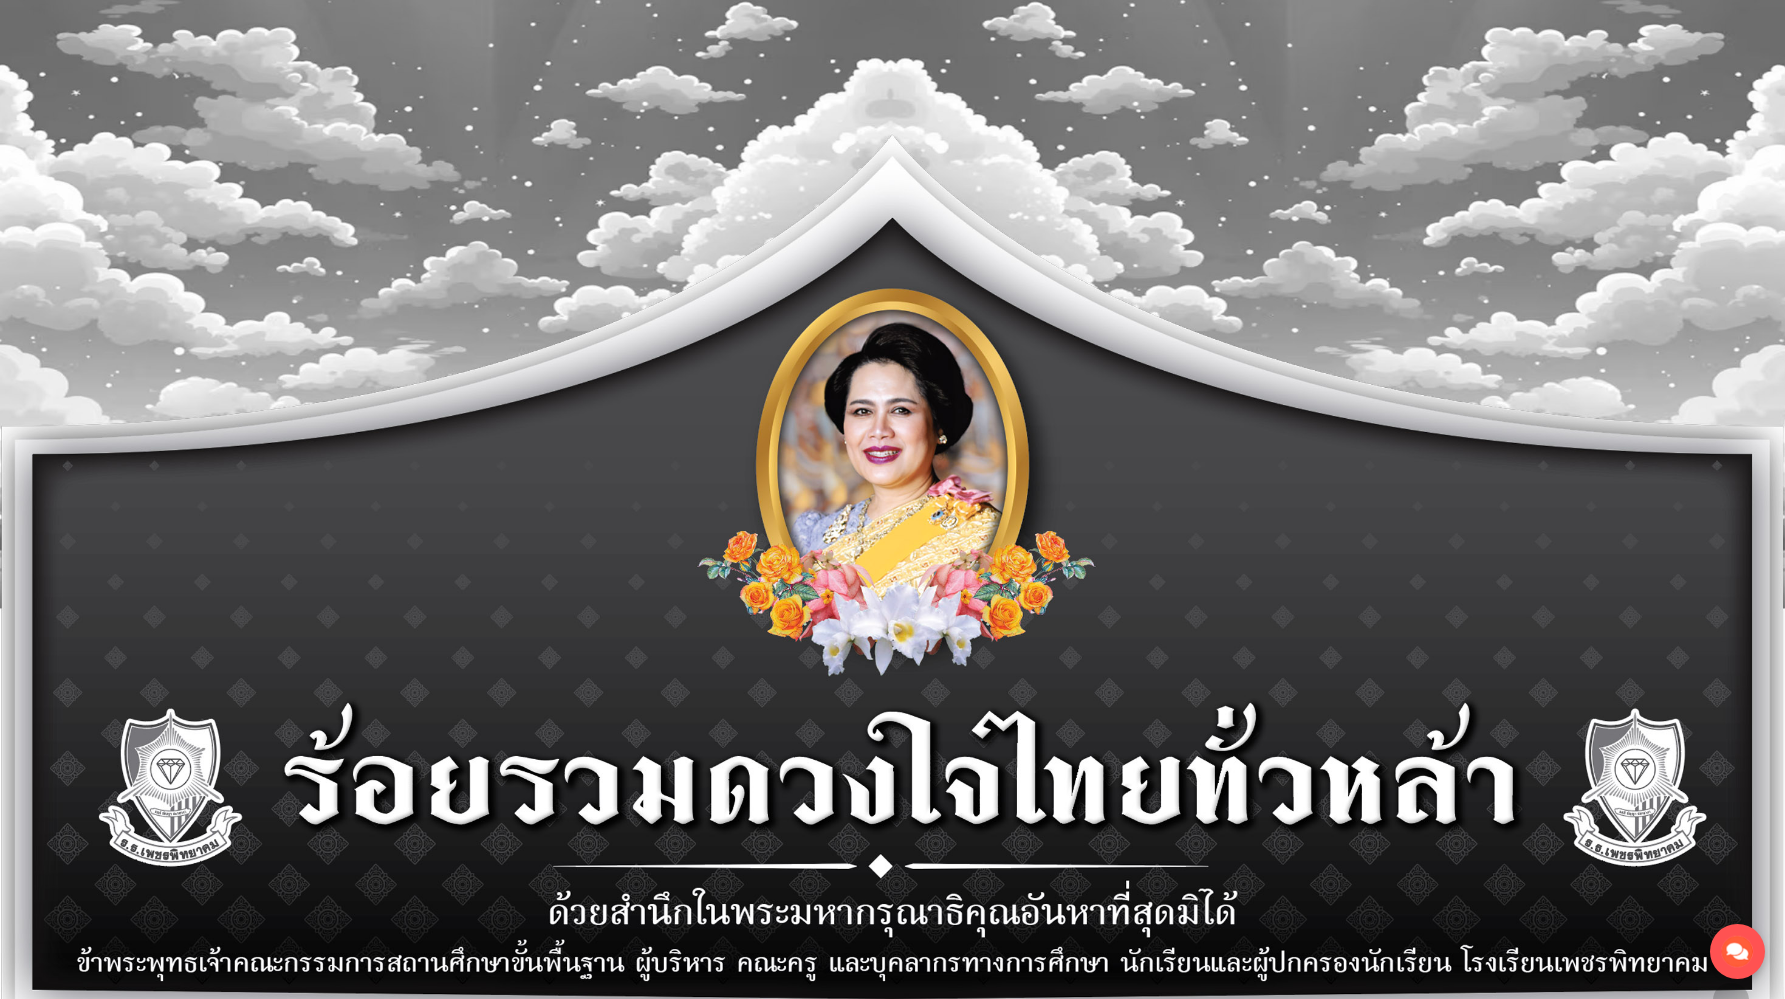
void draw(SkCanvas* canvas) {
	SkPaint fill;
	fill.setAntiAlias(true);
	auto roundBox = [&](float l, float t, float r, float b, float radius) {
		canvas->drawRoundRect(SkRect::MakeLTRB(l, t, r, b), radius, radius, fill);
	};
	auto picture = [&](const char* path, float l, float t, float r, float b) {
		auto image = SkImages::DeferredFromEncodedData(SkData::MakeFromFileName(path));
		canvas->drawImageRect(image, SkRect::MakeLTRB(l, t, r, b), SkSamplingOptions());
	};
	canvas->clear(0xFFFFFFFF);
	picture("image0.png", 0, 0, 1785, 999);
	fill.setColor(0x33000000);
	roundBox(1713, 983, 1749, 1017, 18);
	fill.setMaskFilter(SkMaskFilter::MakeBlur(kNormal_SkBlurStyle, 4));
	canvas->drawRoundRect(SkRect::MakeLTRB(1710, 928, 1765, 983), 27.5f, 27.5f, fill);
	fill.setMaskFilter(nullptr);
	fill.setColor(0xFFFF5252);
	canvas->drawCircle(1737.5f, 951.5f, 27.5f, fill);
	picture("image1.png", 1721, 935, 1754, 968);
}
